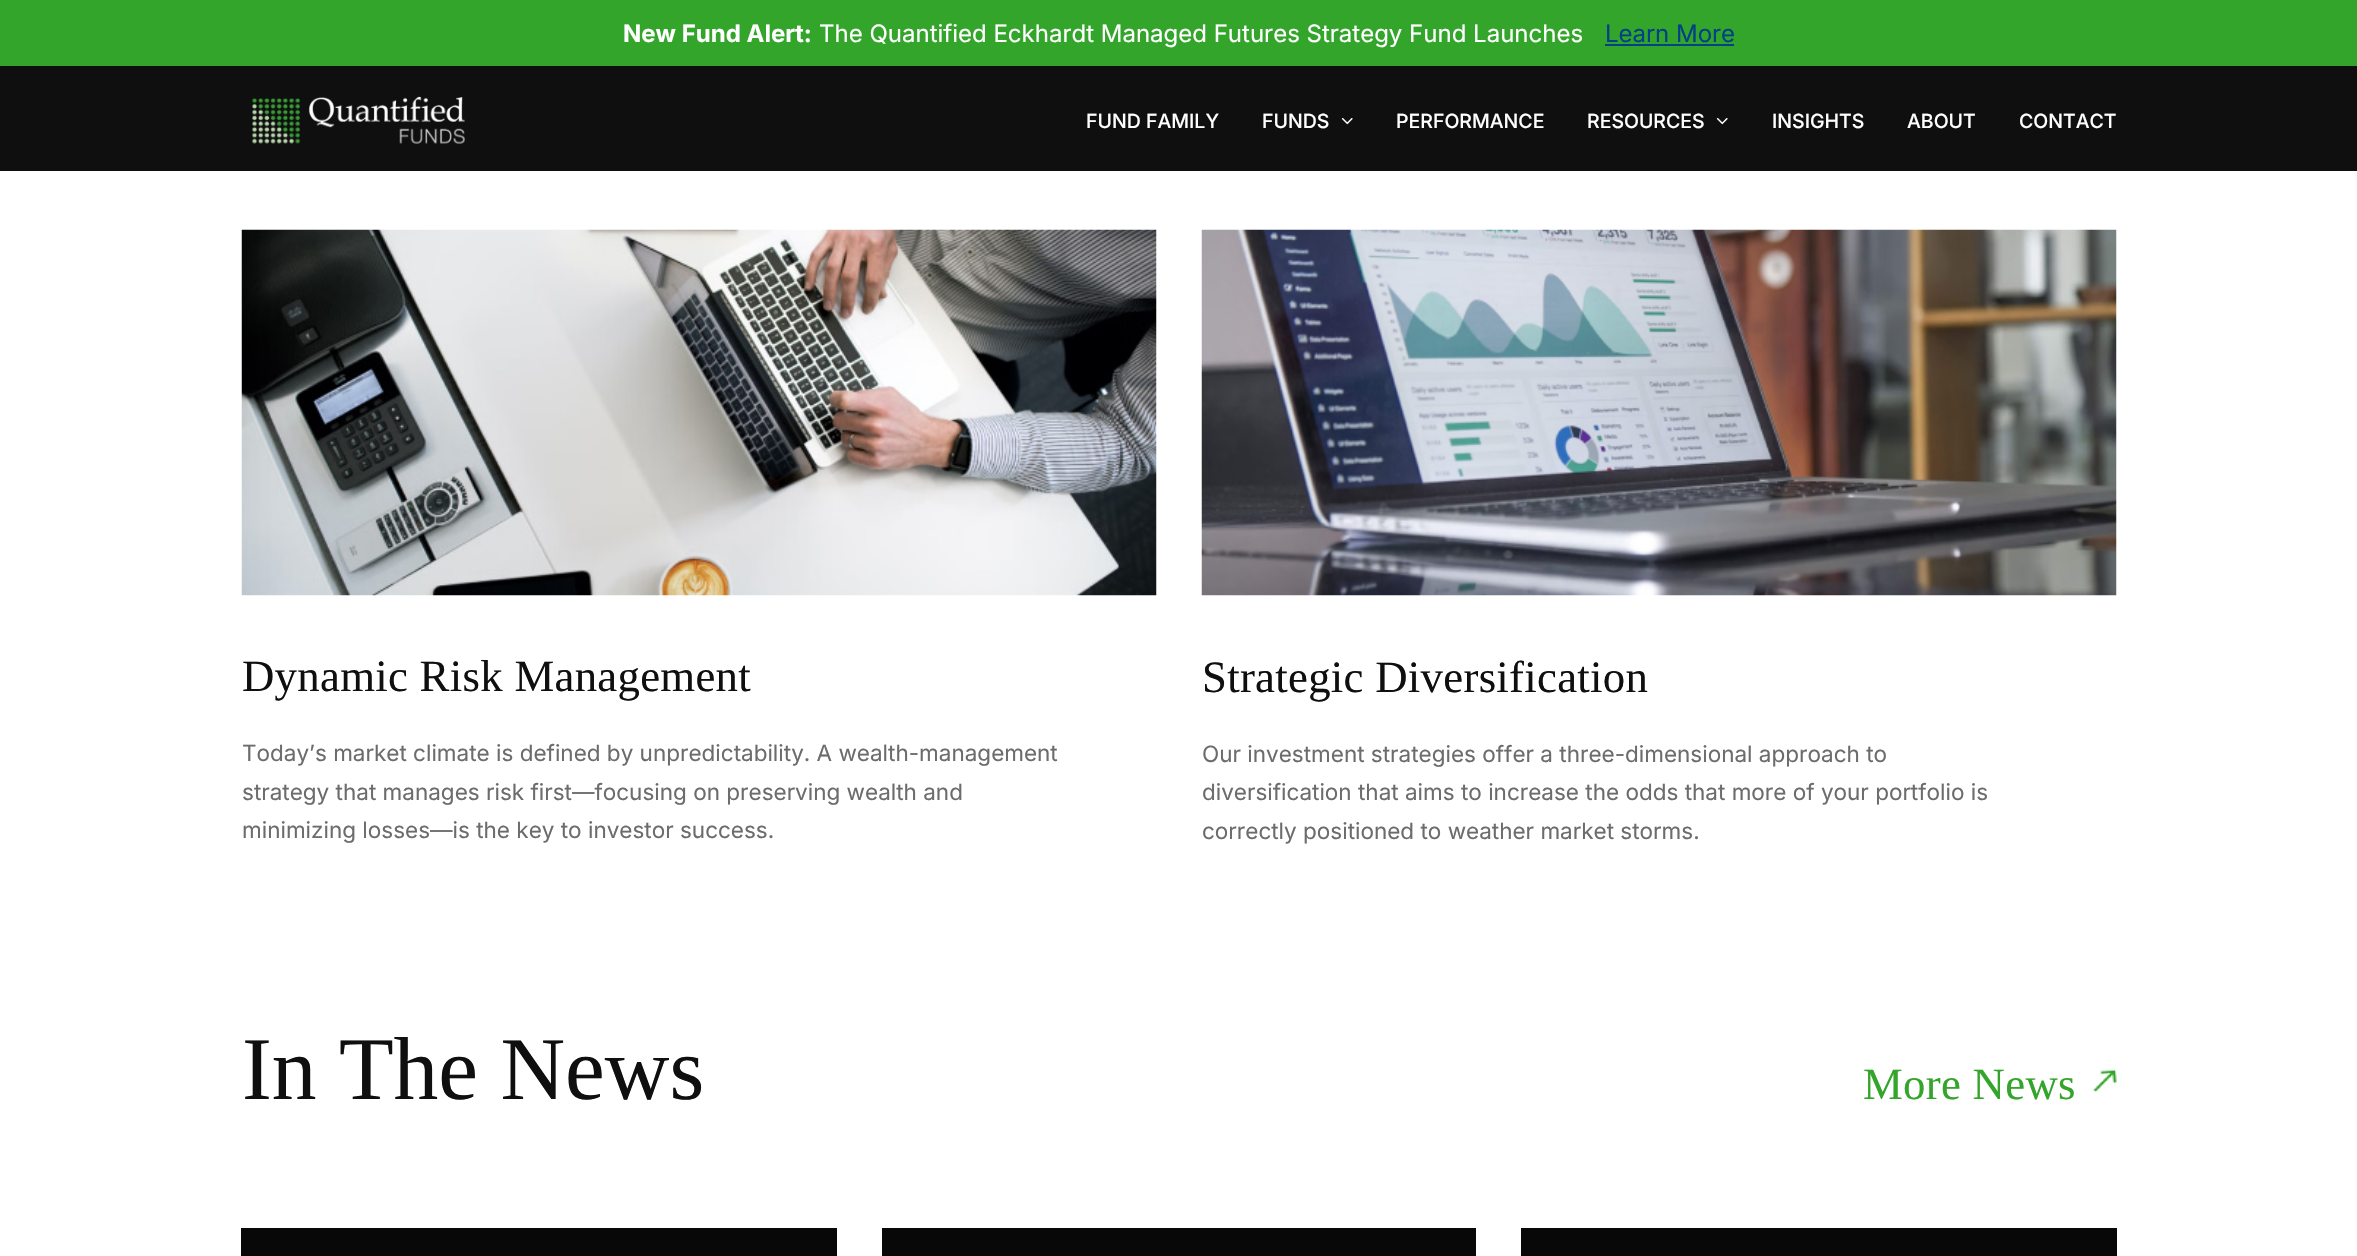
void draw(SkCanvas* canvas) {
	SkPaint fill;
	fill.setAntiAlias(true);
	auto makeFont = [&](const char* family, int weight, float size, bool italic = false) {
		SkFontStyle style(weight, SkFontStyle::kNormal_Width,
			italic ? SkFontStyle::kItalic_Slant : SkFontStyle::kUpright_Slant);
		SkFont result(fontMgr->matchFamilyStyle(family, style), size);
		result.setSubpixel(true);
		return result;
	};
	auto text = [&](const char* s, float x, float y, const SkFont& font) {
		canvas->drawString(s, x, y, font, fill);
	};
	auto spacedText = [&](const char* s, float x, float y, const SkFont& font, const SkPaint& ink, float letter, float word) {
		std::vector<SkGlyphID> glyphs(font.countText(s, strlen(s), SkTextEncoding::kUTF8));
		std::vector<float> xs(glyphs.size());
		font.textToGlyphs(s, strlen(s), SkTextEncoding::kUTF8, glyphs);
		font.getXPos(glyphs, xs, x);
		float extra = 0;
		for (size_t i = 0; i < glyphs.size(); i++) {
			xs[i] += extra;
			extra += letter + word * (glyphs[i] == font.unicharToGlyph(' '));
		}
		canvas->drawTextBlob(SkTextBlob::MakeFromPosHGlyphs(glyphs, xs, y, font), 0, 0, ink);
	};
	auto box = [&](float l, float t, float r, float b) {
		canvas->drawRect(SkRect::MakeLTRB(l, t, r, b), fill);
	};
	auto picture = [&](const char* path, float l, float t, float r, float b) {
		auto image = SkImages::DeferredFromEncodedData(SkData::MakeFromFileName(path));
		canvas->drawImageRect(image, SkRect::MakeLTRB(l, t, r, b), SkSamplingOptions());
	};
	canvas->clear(0xFFFFFFFF);
	fill.setColor(0xFF0F0F0F);
	box(0, 66, 2357, 171);
	fill.setColor(0xFF33A52B);
	box(0, 0, 2357, 66);
	fill.setColor(0xFF004085);
	box(1605, 44, 1734, 46);
	picture("image0.png", 252, 96, 465, 144);
	picture("image1.png", 1341, 117, 1353, 125);
	picture("image1.png", 1716, 117, 1728, 125);
	picture("image2.png", 241, 229, 1157, 596);
	picture("image3.png", 1201, 229, 2117, 596);
	picture("image4.png", 2093, 1069, 2117, 1092);
	fill.setColor(0xFF080808);
	box(241, 1228, 837, 1256);
	box(882, 1228, 1476, 1256);
	box(1521, 1228, 2117, 1256);
	auto font1 = makeFont("Inter", 700, 24);
	fill.setColor(0xFFFFFFFF);
	text("New Fund Alert:", 623, 42, font1);
	auto font2 = makeFont("Inter", 400, 24);
	text("The Quantified Eckhardt Managed Futures Strategy Fund Launches", 819, 42, font2);
	fill.setColor(0xFF004085);
	text("Learn More", 1605, 42, font2);
	auto font3 = makeFont("Inter", 500, 19.5f);
	fill.setColor(0xFFFFFFFF);
	text("FUND FAMILY", 1086, 128, font3);
	text("FUNDS", 1262, 128, font3);
	text("PERFORMANCE", 1396, 128, font3);
	text("RESOURCES", 1587, 128, font3);
	text("INSIGHTS", 1772, 128, font3);
	text("ABOUT", 1907, 128, font3);
	text("CONTACT", 2019, 128, font3);
	auto font4 = makeFont("Liberation Serif", 400, 44.75f);
	fill.setColor(0xFF0F0F0F);
	spacedText("Dynamic Risk Management", 242, 691, font4, fill, 0.3f, 0);
	auto font5 = makeFont("Inter", 400, 22.5f);
	fill.setColor(0xFF6C6C6C);
	text("Today’s market climate is defined by unpredictability. A wealth-management", 242, 761, font5);
	text("strategy that manages risk first—focusing on preserving wealth and", 242, 800, font5);
	text("minimizing losses—is the key to investor success.", 242, 838, font5);
	fill.setColor(0xFF0F0F0F);
	spacedText("Strategic Diversification", 1202, 692, font4, fill, 0.3f, 0);
	fill.setColor(0xFF6C6C6C);
	text("Our investment strategies offer a three-dimensional approach to", 1202, 762, font5);
	text("diversification that aims to increase the odds that more of your portfolio is", 1202, 800, font5);
	text("correctly positioned to weather market storms.", 1202, 839, font5);
	auto font6 = makeFont("Liberation Serif", 400, 89.5f);
	fill.setColor(0xFF0F0F0F);
	text("In The News", 242, 1099, font6);
	fill.setColor(0xFF33A52B);
	spacedText("More News", 1863, 1099, font4, fill, 0.3f, 0);
}
